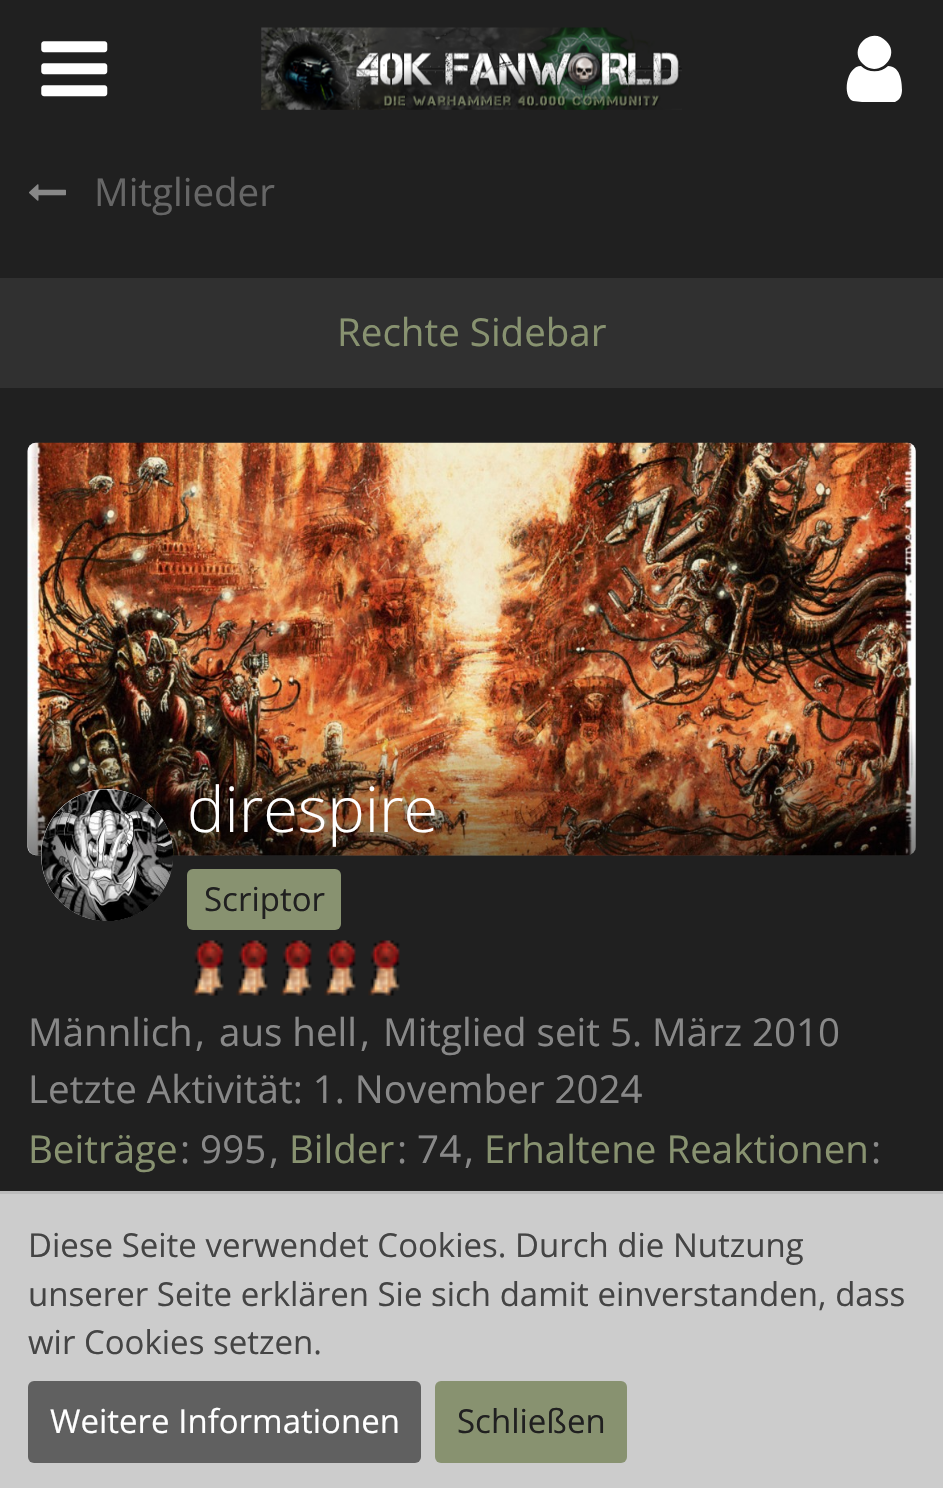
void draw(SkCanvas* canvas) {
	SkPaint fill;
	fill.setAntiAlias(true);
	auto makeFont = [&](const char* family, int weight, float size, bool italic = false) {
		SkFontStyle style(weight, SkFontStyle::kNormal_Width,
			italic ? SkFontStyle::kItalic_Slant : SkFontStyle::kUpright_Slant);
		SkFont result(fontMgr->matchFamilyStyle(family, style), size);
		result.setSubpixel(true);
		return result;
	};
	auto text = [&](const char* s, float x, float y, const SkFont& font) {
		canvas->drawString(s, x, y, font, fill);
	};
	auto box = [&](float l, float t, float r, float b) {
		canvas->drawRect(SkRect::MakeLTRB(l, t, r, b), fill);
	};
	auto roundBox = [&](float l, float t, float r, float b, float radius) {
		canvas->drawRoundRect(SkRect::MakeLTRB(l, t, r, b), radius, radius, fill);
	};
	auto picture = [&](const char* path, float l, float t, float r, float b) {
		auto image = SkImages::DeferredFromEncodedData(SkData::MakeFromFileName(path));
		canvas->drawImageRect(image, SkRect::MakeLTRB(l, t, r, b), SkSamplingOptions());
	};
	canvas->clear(0xFF202020);
	picture("image0.png", 261, 27, 682, 110);
	picture("image1.png", 41, 41, 108, 97);
	fill.setColor(0xFFFFFFFF);
	canvas->drawPath(SkPathBuilder().moveTo(902, 90).cubicTo(902, 95, 900, 100, 895, 102).lineTo(862, 102).lineTo(853, 101).cubicTo(842, 97, 846, 66, 861, 66).cubicTo(868, 73, 881, 73, 888, 66).cubicTo(900, 66, 902, 81, 902, 90).close().moveTo(886, 41).cubicTo(902, 56, 878, 79, 863, 64).cubicTo(847, 49, 871, 25, 886, 41).close().detach(), fill);
	picture("image2.png", 29, 184, 66, 201);
	fill.setColor(0xFF303030);
	box(0, 278, 943, 388);
	picture("image3.png", 27, 442, 916, 856);
	{
		const SkColor colors[] = {0x00000000, 0x80000000};
		const float stops[] = {0.7f, 1};
		const SkPoint ends[] = {{472, 443}, {472, 855}};
		fill.setShader(SkGradientShader::MakeLinear(ends, colors, stops, 2, SkTileMode::kClamp));
		fill.setAlpha(255);
	}
	canvas->drawPath(SkPathBuilder().moveTo(28, 443).lineTo(916, 443).lineTo(916, 847).cubicTo(916, 851.5f, 912.5f, 855, 908, 855).lineTo(36, 855).cubicTo(31.5f, 855, 28, 851.5f, 28, 847).close().detach(), fill);
	fill.setShader(nullptr);
	fill.setColor(0xFF889270);
	roundBox(187, 869, 341, 930, 6);
	picture("image4.png", 192, 940, 224, 996);
	picture("image4.png", 236, 940, 268, 996);
	picture("image5.png", 280, 940, 312, 996);
	picture("image5.png", 324, 940, 356, 996);
	picture("image4.png", 368, 940, 400, 996);
	fill.setColor(0xFFFFFFFF);
	canvas->drawCircle(107, 855, 66, fill);
	picture("image6.png", 41, 789, 173, 921);
	fill.setColor(0xFFCCCCCC);
	box(0, 1194, 943, 1488);
	fill.setColor(0xFFBBBBBB);
	box(0, 1191, 943, 1194);
	fill.setColor(0xFF606060);
	roundBox(28, 1381, 421, 1463, 6);
	fill.setColor(0xFF889270);
	roundBox(435, 1381, 627, 1463, 6);
	auto font1 = makeFont("Open Sans", 400, 38.5f);
	fill.setColor(0xFF666666);
	text("Mitglieder", 94, 206, font1);
	fill.setColor(0xFF889270);
	text("Rechte Sidebar", 337, 346, font1);
	auto font2 = makeFont("Open Sans", 300, 63);
	fill.setColor(0xFFFFFFFF);
	text("direspire", 187, 832, font2);
	auto font3 = makeFont("Open Sans", 400, 33);
	fill.setColor(0xFF202020);
	text("Scriptor", 204, 911, font3);
	fill.setColor(0xFF888888);
	text("Männlich", 28, 1046, font1);
	text(",", 195, 1046, font1);
	text("aus hell", 219, 1046, font1);
	text(",", 360, 1046, font1);
	text("Mitglied seit 5. März 2010", 383, 1046, font1);
	text("Letzte Aktivität: 1. November 2024", 28, 1103, font1);
	fill.setColor(0xFF889270);
	text("Beiträge", 28, 1163, font1);
	fill.setColor(0xFF888888);
	text(": 995", 180, 1163, font1);
	text(",", 269, 1163, font1);
	fill.setColor(0xFF889270);
	text("Bilder", 289, 1163, font1);
	fill.setColor(0xFF888888);
	text(": 74", 397, 1163, font1);
	text(",", 464, 1163, font1);
	fill.setColor(0xFF889270);
	text("Erhaltene Reaktionen", 484, 1163, font1);
	fill.setColor(0xFF888888);
	text(":", 871, 1163, font1);
	fill.setColor(0xFF444444);
	text("Diese Seite verwendet Cookies. Durch die Nutzung", 28, 1257, font3);
	text("unserer Seite erklären Sie sich damit einverstanden, dass", 28, 1306, font3);
	text("wir Cookies setzen.", 28, 1354, font3);
	fill.setColor(0xFFFFFFFF);
	text("Weitere Informationen", 50, 1433, font3);
	fill.setColor(0xFF202020);
	text("Schließen", 457, 1433, font3);
}
